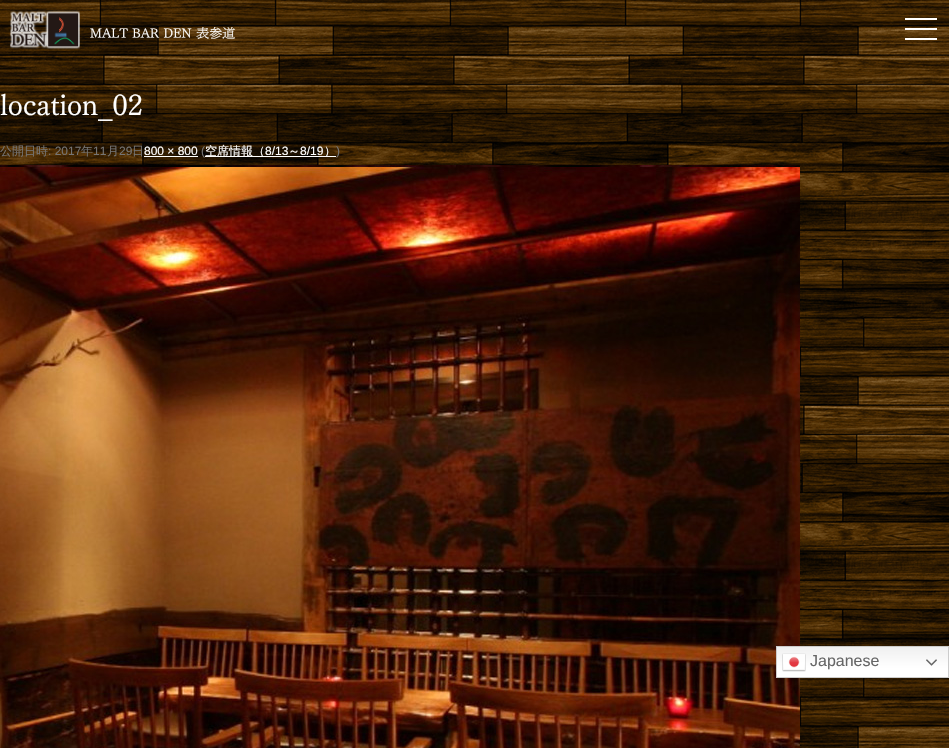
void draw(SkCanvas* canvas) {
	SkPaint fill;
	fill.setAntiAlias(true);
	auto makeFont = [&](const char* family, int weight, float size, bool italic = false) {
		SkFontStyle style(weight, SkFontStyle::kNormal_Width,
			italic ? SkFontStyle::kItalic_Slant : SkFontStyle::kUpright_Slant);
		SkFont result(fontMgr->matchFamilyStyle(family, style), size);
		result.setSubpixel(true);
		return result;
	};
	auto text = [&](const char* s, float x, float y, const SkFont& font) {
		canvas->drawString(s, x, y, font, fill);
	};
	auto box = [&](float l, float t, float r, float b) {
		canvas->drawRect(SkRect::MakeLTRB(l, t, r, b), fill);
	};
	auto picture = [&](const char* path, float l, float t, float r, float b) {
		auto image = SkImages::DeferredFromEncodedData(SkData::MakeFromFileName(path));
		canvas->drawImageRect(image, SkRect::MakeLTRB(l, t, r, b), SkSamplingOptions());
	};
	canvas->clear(0xFFFFFFFF);
	picture("image0.png", 0, 0, 949, 748);
	picture("image1.png", 10, 10, 80, 49);
	fill.setColor(0xFFFFFFFF);
	box(905, 28, 937, 30);
	box(905, 18, 937, 20);
	box(905, 38, 937, 40);
	picture("image4.png", 0, 165, 800, 748);
	{
		const SkColor colors[] = {0xFFEFEFEF, 0xFFFFFFFF};
		const float stops[] = {0, 0.7f};
		const SkPoint ends[] = {{863, 646}, {863, 678}};
		fill.setShader(SkGradientShader::MakeLinear(ends, colors, stops, 2, SkTileMode::kClamp));
		fill.setAlpha(255);
	}
	box(777, 647, 948, 677);
	fill.setStyle(SkPaint::kStroke_Style);
	fill.setStrokeWidth(1);
	fill.setShader(nullptr);
	fill.setColor(0xFFCCCCCC);
	canvas->drawRect(SkRect::MakeLTRB(776.5f, 646.5f, 948.5f, 677.5f), fill);
	picture("image2.png", 782, 653, 806, 672);
	picture("image3.png", 926, 659, 937, 666);
	fill.setStyle(SkPaint::kFill_Style);
	fill.setColor(0xFFFFFFFF);
	box(144, 156, 198, 157);
	box(205, 156, 336, 157);
	auto font1 = makeFont("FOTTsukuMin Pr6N", 300, 13);
	text("MALT BAR DEN 表参道", 90, 38, font1);
	auto font2 = makeFont("Liberation Sans", 400, 16);
	fill.setColor(0xFF666666);
	text("Japanese", 810, 666, font2);
	auto font3 = makeFont("FOTTsukuMin Pr6N", 300, 29);
	fill.setColor(0xFFFFFFFF);
	text("location_02", 0, 116, font3);
	auto font4 = makeFont("WenQuanYi Zen Hei", 500, 12);
	fill.setColor(0xFF757575);
	text("公開日時", 0, 155, font4);
	auto font5 = makeFont("Liberation Sans", 400, 12);
	text(": 2017", 48, 155, font5);
	text("年", 81, 155, font4);
	text("11", 93, 155, font5);
	text("月", 107, 155, font4);
	text("29", 119, 155, font5);
	text("日", 132, 155, font4);
	fill.setColor(0xFFFFFFFF);
	text("800 × 800", 144, 155, font5);
	fill.setColor(0xFF757575);
	text("(", 201, 155, font5);
	fill.setColor(0xFFFFFFFF);
	text("空席情報（", 205, 155, font4);
	text("8/13", 265, 155, font5);
	text("～", 288, 155, font4);
	text("8/19", 300, 155, font5);
	text("）", 324, 155, font4);
	fill.setColor(0xFF757575);
	text(")", 336, 155, font5);
}
